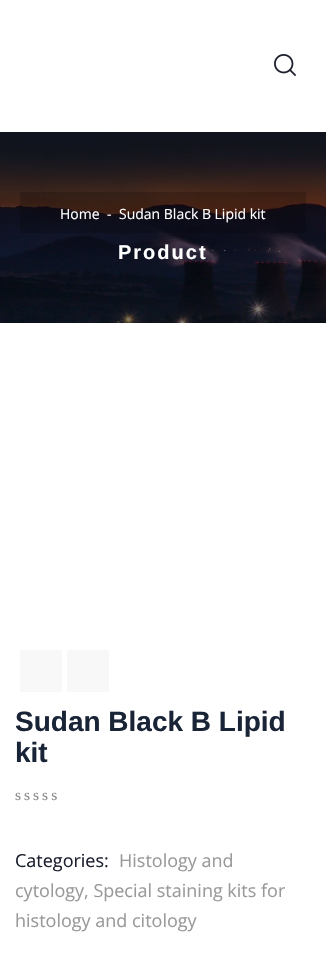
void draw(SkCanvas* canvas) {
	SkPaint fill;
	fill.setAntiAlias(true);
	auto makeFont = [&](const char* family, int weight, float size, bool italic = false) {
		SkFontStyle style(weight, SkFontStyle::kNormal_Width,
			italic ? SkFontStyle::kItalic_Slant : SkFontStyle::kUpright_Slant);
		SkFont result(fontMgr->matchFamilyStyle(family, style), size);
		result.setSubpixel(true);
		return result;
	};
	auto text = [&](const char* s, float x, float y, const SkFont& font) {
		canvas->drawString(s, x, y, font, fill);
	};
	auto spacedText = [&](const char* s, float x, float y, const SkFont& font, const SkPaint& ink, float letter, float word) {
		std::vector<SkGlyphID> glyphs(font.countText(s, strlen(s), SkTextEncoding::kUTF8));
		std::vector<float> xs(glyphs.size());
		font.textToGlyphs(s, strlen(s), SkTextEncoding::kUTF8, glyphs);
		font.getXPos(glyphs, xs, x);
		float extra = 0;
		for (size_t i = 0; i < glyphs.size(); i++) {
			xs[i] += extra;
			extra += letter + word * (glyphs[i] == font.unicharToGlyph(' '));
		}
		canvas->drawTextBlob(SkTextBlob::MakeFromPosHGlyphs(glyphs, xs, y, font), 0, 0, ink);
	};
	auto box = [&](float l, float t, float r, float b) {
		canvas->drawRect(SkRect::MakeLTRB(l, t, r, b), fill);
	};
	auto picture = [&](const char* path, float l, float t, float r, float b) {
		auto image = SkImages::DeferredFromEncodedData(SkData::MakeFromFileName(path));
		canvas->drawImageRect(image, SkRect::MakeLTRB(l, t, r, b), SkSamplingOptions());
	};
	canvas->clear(0xFFFFFFFF);
	picture("image0.png", 274, 54, 296, 76);
	picture("image1.png", 0, 132, 326, 323);
	fill.setColor(0x33000000);
	box(20, 192, 306, 233);
	fill.setColor(0xFFF8F8F8);
	box(20, 650, 62, 692);
	box(67, 650, 109, 692);
	auto font1 = makeFont("Open Sans", 400, 14);
	fill.setColor(0xFFFFFFFF);
	text("Home", 60, 219, font1);
	text("-", 107, 219, font1);
	text("Sudan Black B Lipid kit", 119, 219, font1);
	auto font2 = makeFont("Liberation Sans", 700, 20);
	spacedText("Product", 118, 259, font2, fill, 2, 0);
	auto font3 = makeFont("Liberation Sans", 700, 28);
	fill.setColor(0xFF192437);
	text("Sudan Black B Lipid", 15, 731, font3);
	text("kit", 15, 762, font3);
	auto font4 = makeFont("Liberation Serif", 400, 15.5f);
	fill.setColor(0xFF898989);
	spacedText("sssss", 15, 800, font4, fill, 3, 0);
	auto font5 = makeFont("Open Sans", 400, 18);
	fill.setColor(0xFF1B1F2E);
	text("Categories:", 15, 867, font5);
	fill.setColor(0xFF999999);
	text("Histology and", 119, 867, font5);
	text("cytology, Special staining kits for", 15, 897, font5);
	text("histology and citology", 15, 927, font5);
}
